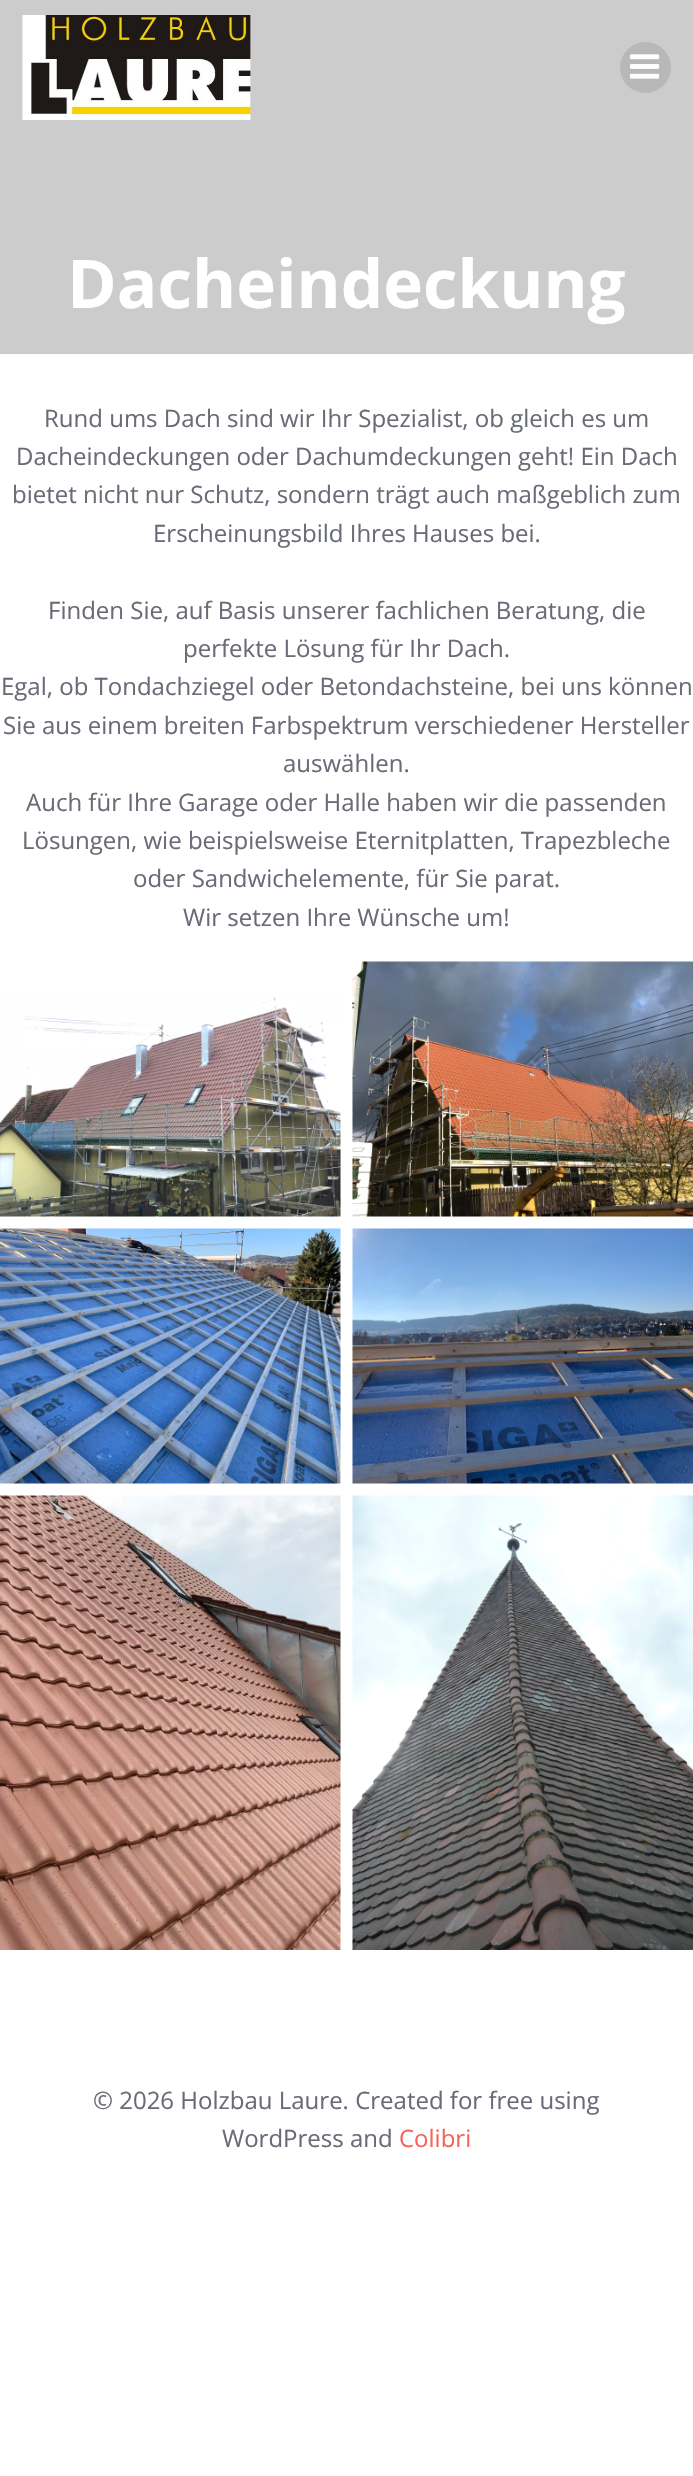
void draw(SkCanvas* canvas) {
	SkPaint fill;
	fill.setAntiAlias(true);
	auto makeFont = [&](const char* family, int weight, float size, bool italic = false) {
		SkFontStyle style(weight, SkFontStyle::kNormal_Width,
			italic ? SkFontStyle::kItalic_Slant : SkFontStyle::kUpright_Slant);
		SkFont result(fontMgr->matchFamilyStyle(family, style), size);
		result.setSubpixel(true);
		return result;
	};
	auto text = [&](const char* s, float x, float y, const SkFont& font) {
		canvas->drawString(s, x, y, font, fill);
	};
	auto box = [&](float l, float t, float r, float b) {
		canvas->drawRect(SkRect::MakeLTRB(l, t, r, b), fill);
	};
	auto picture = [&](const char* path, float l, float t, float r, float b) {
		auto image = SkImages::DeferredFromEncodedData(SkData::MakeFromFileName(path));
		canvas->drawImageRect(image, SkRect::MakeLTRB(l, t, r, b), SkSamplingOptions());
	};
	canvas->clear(0xFFFFFFFF);
	fill.setColor(0xFFCCCCCD);
	box(0, 0, 693, 354);
	picture("image0.png", 22, 15, 251, 120);
	fill.setColor(0xFFB8B8B9);
	canvas->drawCircle(645.5f, 67.5f, 25.5f, fill);
	picture("image1.png", 630, 54, 660, 79);
	picture("image2.png", 0, 997, 341, 1217);
	picture("image3.png", 352, 961, 693, 1217);
	picture("image4.png", 0, 1228, 341, 1484);
	picture("image5.png", 352, 1228, 693, 1484);
	picture("image6.png", 0, 1495, 341, 1950);
	picture("image7.png", 352, 1495, 693, 1950);
	auto font1 = makeFont("Open Sans", 700, 67.25f);
	fill.setColor(0xFFFFFFFF);
	text("Dacheindeckung", 67, 308, font1);
	auto font2 = makeFont("Open Sans", 400, 24);
	fill.setColor(0xFF696C77);
	text("Rund ums Dach sind wir Ihr Spezialist, ob gleich es um", 44, 427, font2);
	text("Dacheindeckungen oder Dachumdeckungen geht! Ein Dach", 16, 465, font2);
	text("bietet nicht nur Schutz, sondern trägt auch maßgeblich zum", 12, 503, font2);
	text("Erscheinungsbild Ihres Hauses bei.", 153, 542, font2);
	text("Finden Sie, auf Basis unserer fachlichen Beratung, die", 48, 619, font2);
	text("perfekte Lösung für Ihr Dach.", 183, 657, font2);
	text("Egal, ob Tondachziegel oder Betondachsteine, bei uns können", 1, 695, font2);
	text("Sie aus einem breiten Farbspektrum verschiedener Hersteller", 3, 734, font2);
	text("auswählen.", 283, 772, font2);
	text("Auch für Ihre Garage oder Halle haben wir die passenden", 26, 811, font2);
	text("Lösungen, wie beispielsweise Eternitplatten, Trapezbleche", 22, 849, font2);
	text("oder Sandwichelemente, für Sie parat.", 133, 887, font2);
	text("Wir setzen Ihre Wünsche um!", 183, 926, font2);
	text("© 2026 Holzbau Laure. Created for free using", 93, 2109, font2);
	text("WordPress and", 222, 2147, font2);
	fill.setColor(0xFFF26559);
	text("Colibri", 399, 2147, font2);
}
